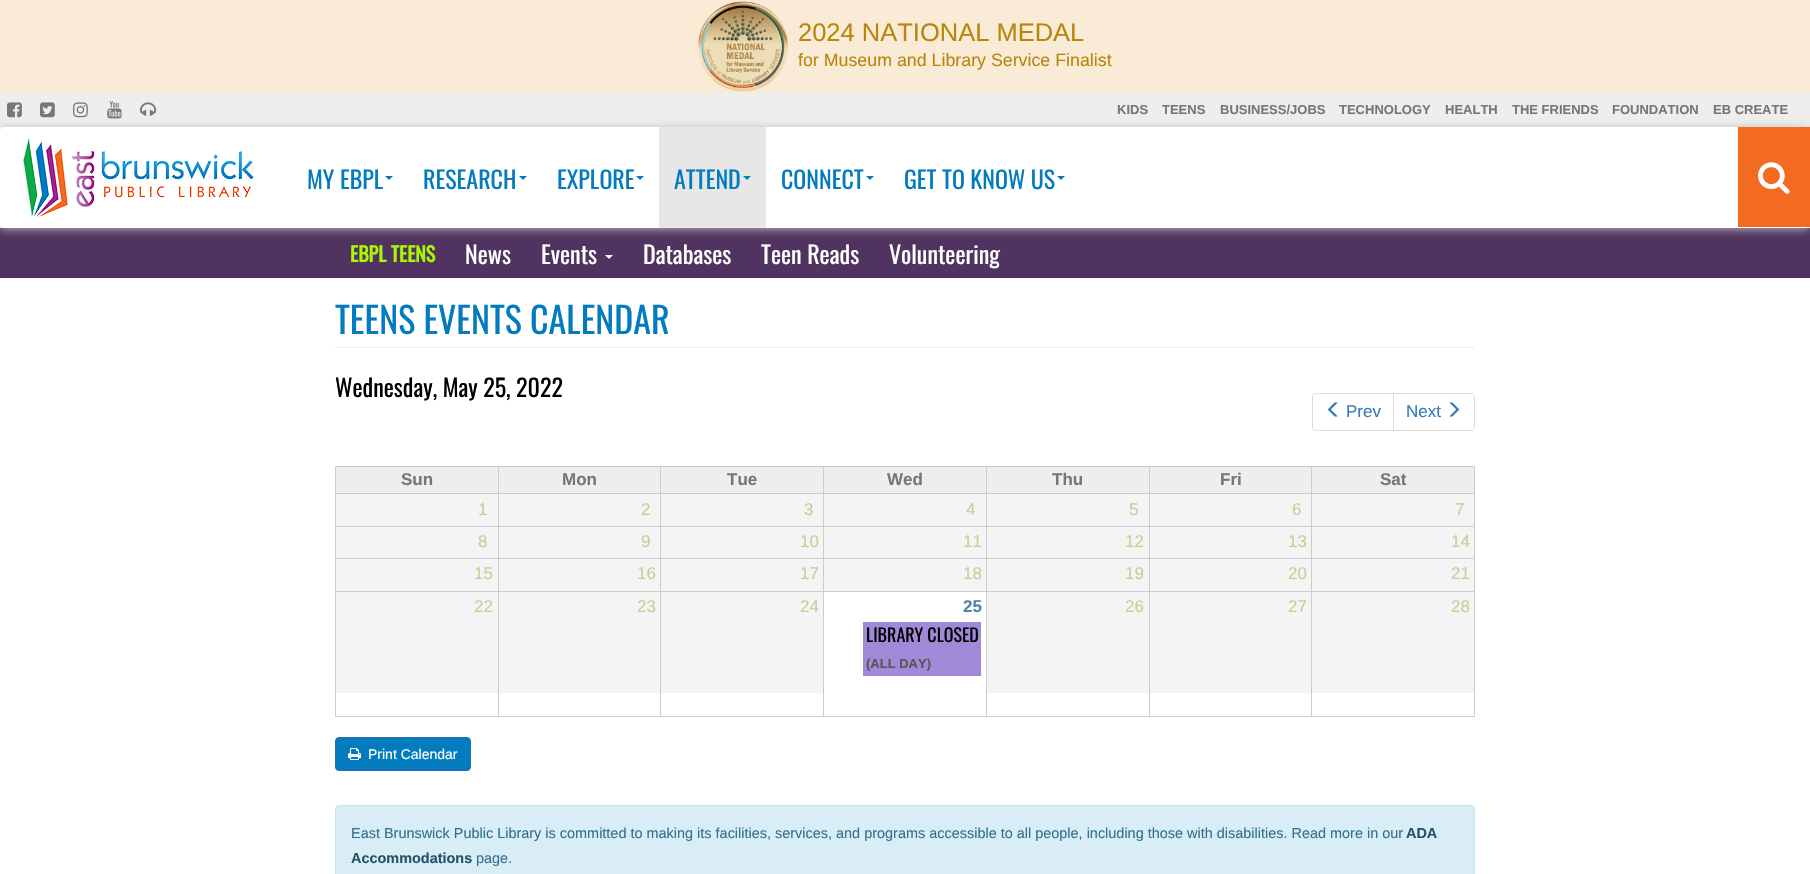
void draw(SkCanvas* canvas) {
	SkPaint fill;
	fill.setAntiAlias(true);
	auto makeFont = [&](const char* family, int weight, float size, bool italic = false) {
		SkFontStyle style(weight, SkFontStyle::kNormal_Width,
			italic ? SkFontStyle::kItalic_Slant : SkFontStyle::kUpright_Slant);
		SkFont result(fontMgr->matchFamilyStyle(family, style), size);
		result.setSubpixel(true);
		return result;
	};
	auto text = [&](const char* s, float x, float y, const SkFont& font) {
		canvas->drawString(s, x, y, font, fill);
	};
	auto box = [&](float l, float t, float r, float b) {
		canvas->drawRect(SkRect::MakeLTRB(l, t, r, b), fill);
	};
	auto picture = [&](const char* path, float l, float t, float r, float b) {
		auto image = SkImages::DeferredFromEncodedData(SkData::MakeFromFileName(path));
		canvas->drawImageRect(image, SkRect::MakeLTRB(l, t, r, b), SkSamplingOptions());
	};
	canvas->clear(0xFFFFFFFF);
	fill.setColor(0xFFEEEEEE);
	box(0, 93, 1810, 127);
	fill.setColor(0xFFFAEBD7);
	box(0, 0, 1810, 93);
	picture("image0.png", 698, 1, 788, 92);
	picture("image1.png", 7, 102, 22, 118);
	picture("image2.png", 40, 102, 55, 118);
	picture("image3.png", 73, 102, 88, 118);
	picture("image4.png", 107, 101, 122, 119);
	picture("image5.png", 140, 102, 157, 116);
	fill.setColor(0xFF503360);
	box(0, 228, 1810, 278);
	canvas->save();
	canvas->clipPath(SkPathBuilder(SkPathFillType::kEvenOdd).moveTo(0, 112).lineTo(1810, 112).lineTo(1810, 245).lineTo(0, 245).close().moveTo(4, 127).lineTo(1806, 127).cubicTo(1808, 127, 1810, 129, 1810, 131).lineTo(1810, 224).cubicTo(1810, 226, 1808, 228, 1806, 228).lineTo(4, 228).cubicTo(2, 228, 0, 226, 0, 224).lineTo(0, 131).cubicTo(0, 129, 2, 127, 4, 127).close().detach(), true);
	fill.setColor(0xFFBBBBBB);
	fill.setMaskFilter(SkMaskFilter::MakeBlur(kNormal_SkBlurStyle, 5));
	canvas->drawRoundRect(SkRect::MakeLTRB(0, 128, 1810, 229), 4, 4, fill);
	fill.setMaskFilter(nullptr);
	canvas->restore();
	picture("image6.png", 23, 137, 254, 218);
	fill.setColor(0xFF027CBF);
	canvas->drawPath(SkPathBuilder().moveTo(385, 176).lineTo(393, 176).lineTo(389, 180).close().detach(), fill);
	canvas->drawPath(SkPathBuilder().moveTo(519, 176).lineTo(527, 176).lineTo(523, 180).close().detach(), fill);
	canvas->drawPath(SkPathBuilder().moveTo(636, 176).lineTo(644, 176).lineTo(640, 180).close().detach(), fill);
	fill.setColor(0xFFE7E7E7);
	box(659, 127, 766, 228);
	fill.setColor(0xFF027CBF);
	canvas->drawPath(SkPathBuilder().moveTo(743, 176).lineTo(751, 176).lineTo(747, 180).close().detach(), fill);
	canvas->drawPath(SkPathBuilder().moveTo(866, 176).lineTo(874, 176).lineTo(870, 180).close().detach(), fill);
	canvas->drawPath(SkPathBuilder().moveTo(1057, 176).lineTo(1065, 176).lineTo(1061, 180).close().detach(), fill);
	fill.setColor(0xFFF36B21);
	box(1738, 127, 1810, 227);
	picture("image7.png", 1758, 162, 1790, 194);
	fill.setColor(0xFFFFFFFF);
	canvas->drawPath(SkPathBuilder().moveTo(605, 255).lineTo(613, 255).lineTo(609, 259).close().detach(), fill);
	fill.setColor(0xFFEEEEEE);
	box(335, 347, 1475, 348);
	fill.setStyle(SkPaint::kStroke_Style);
	fill.setStrokeWidth(1);
	fill.setColor(0xFFDDDDDD);
	canvas->drawPath(SkPathBuilder().moveTo(1316, 393.5f).lineTo(1393.5f, 393.5f).lineTo(1393.5f, 430.5f).lineTo(1316, 430.5f).cubicTo(1314, 430.5f, 1312.5f, 429, 1312.5f, 427).lineTo(1312.5f, 397).cubicTo(1312.5f, 395, 1314, 393.5f, 1316, 393.5f).close().detach(), fill);
	picture("image8.png", 1327, 402, 1338, 417);
	fill.setStyle(SkPaint::kFill_Style);
	fill.setColor(0xFFFFFFFF);
	canvas->drawPath(SkPathBuilder().moveTo(1393.5f, 393.5f).lineTo(1471, 393.5f).cubicTo(1473, 393.5f, 1474.5f, 395, 1474.5f, 397).lineTo(1474.5f, 427).cubicTo(1474.5f, 429, 1473, 430.5f, 1471, 430.5f).lineTo(1393.5f, 430.5f).close().detach(), fill);
	fill.setStyle(SkPaint::kStroke_Style);
	fill.setColor(0xFFDDDDDD);
	canvas->drawPath(SkPathBuilder().moveTo(1393.5f, 393.5f).lineTo(1471, 393.5f).cubicTo(1473, 393.5f, 1474.5f, 395, 1474.5f, 397).lineTo(1474.5f, 427).cubicTo(1474.5f, 429, 1473, 430.5f, 1471, 430.5f).lineTo(1393.5f, 430.5f).close().detach(), fill);
	picture("image9.png", 1449, 402, 1460, 417);
	fill.setStyle(SkPaint::kFill_Style);
	fill.setColor(0xFFEEEEEE);
	box(336, 467, 498, 493);
	fill.setColor(0xFFCCCCCC);
	box(1311, 466, 1475, 467);
	box(1311, 493, 1475, 494);
	fill.setColor(0xFFF4F4F4);
	box(498, 524, 1475, 526);
	fill.setColor(0xFFCCCCCC);
	box(1311, 526, 1475, 527);
	fill.setColor(0xFFF4F4F4);
	box(498, 556, 1475, 558);
	fill.setColor(0xFFCCCCCC);
	box(1311, 558, 1475, 559);
	fill.setColor(0xFFF4F4F4);
	box(498, 589, 1475, 591);
	fill.setColor(0xFFCCCCCC);
	box(1311, 591, 1475, 592);
	box(1474, 621, 1475, 717);
	box(1311, 716, 1475, 717);
	box(1311, 621, 1312, 717);
	box(1311, 591, 1312, 622);
	box(1149, 591, 1312, 592);
	box(1311, 588, 1312, 592);
	box(1311, 558, 1312, 589);
	box(1149, 558, 1312, 559);
	box(1311, 556, 1312, 559);
	box(1311, 526, 1312, 557);
	box(1149, 526, 1312, 527);
	box(1311, 523, 1312, 527);
	box(1311, 493, 1312, 524);
	box(1149, 493, 1312, 494);
	box(1311, 466, 1312, 494);
	box(1149, 466, 1312, 467);
	box(1149, 716, 1312, 717);
	box(1149, 621, 1150, 717);
	box(1149, 591, 1150, 622);
	box(986, 591, 1150, 592);
	box(1149, 588, 1150, 592);
	box(1149, 558, 1150, 589);
	box(986, 558, 1150, 559);
	box(1149, 556, 1150, 559);
	box(1149, 526, 1150, 557);
	box(986, 526, 1150, 527);
	box(1149, 523, 1150, 527);
	box(1149, 493, 1150, 524);
	box(986, 493, 1150, 494);
	box(1149, 466, 1150, 494);
	box(986, 466, 1150, 467);
	box(823, 716, 987, 717);
	box(986, 716, 1150, 717);
	box(986, 621, 987, 717);
	box(986, 591, 987, 622);
	box(823, 591, 987, 592);
	box(986, 588, 987, 592);
	box(986, 558, 987, 589);
	box(823, 558, 987, 559);
	box(986, 556, 987, 559);
	box(986, 526, 987, 557);
	box(823, 526, 987, 527);
	box(986, 523, 987, 527);
	box(986, 493, 987, 524);
	box(823, 493, 987, 494);
	box(986, 466, 987, 494);
	box(823, 466, 987, 467);
	box(823, 621, 824, 717);
	box(823, 591, 824, 622);
	box(660, 591, 824, 592);
	box(823, 588, 824, 592);
	box(823, 558, 824, 589);
	box(660, 558, 824, 559);
	box(823, 556, 824, 559);
	box(823, 526, 824, 557);
	box(660, 526, 824, 527);
	box(823, 523, 824, 527);
	box(823, 493, 824, 524);
	box(660, 493, 824, 494);
	box(823, 466, 824, 494);
	box(660, 466, 824, 467);
	box(660, 716, 824, 717);
	box(660, 621, 661, 717);
	box(660, 591, 661, 622);
	box(498, 591, 661, 592);
	box(660, 588, 661, 592);
	box(660, 558, 661, 589);
	box(498, 558, 661, 559);
	box(660, 556, 661, 559);
	box(660, 526, 661, 557);
	box(498, 526, 661, 527);
	box(660, 523, 661, 527);
	box(660, 493, 661, 524);
	box(498, 493, 661, 494);
	box(660, 466, 661, 494);
	box(498, 466, 661, 467);
	box(498, 716, 661, 717);
	box(498, 621, 499, 717);
	box(498, 591, 499, 622);
	box(335, 591, 499, 592);
	box(498, 588, 499, 592);
	box(498, 558, 499, 589);
	box(335, 558, 499, 559);
	box(498, 556, 499, 559);
	box(498, 526, 499, 557);
	box(335, 526, 499, 527);
	box(498, 523, 499, 527);
	box(498, 493, 499, 524);
	box(335, 493, 499, 494);
	box(498, 466, 499, 494);
	box(335, 466, 499, 467);
	box(335, 716, 499, 717);
	box(335, 621, 336, 717);
	box(335, 588, 336, 622);
	box(335, 556, 336, 589);
	box(335, 523, 336, 557);
	box(335, 493, 336, 524);
	box(335, 466, 336, 494);
	fill.setColor(0xFFEEEEEE);
	box(499, 467, 660, 493);
	box(661, 467, 823, 493);
	box(824, 467, 986, 493);
	box(987, 467, 1149, 493);
	box(1150, 467, 1311, 493);
	box(1312, 467, 1474, 493);
	fill.setColor(0xFFCCCCCC);
	box(1474, 588, 1475, 622);
	box(1474, 556, 1475, 589);
	box(1474, 523, 1475, 557);
	box(1474, 493, 1475, 524);
	box(1474, 466, 1475, 494);
	fill.setColor(0xFFF4F4F4);
	box(336, 494, 498, 526);
	box(499, 494, 660, 524);
	box(661, 494, 823, 524);
	box(824, 494, 986, 524);
	box(987, 494, 1149, 524);
	box(1150, 494, 1311, 524);
	box(1312, 494, 1474, 524);
	box(336, 527, 498, 558);
	box(499, 527, 660, 556);
	box(661, 527, 823, 556);
	box(824, 527, 986, 556);
	box(987, 527, 1149, 556);
	box(1150, 527, 1311, 556);
	box(1312, 527, 1474, 556);
	box(336, 559, 498, 591);
	box(499, 559, 660, 589);
	box(661, 559, 823, 589);
	box(824, 559, 986, 589);
	box(987, 559, 1149, 589);
	box(1150, 559, 1311, 589);
	box(1312, 559, 1474, 589);
	box(336, 592, 498, 693);
	box(499, 592, 660, 693);
	box(661, 592, 823, 693);
	box(987, 592, 1149, 693);
	box(1150, 592, 1311, 693);
	box(1312, 592, 1474, 693);
	fill.setColor(0xFFA089D9);
	box(863, 622, 981, 676);
	fill.setColor(0xFF027CBF);
	canvas->drawRoundRect(SkRect::MakeLTRB(335.5f, 737.5f, 470.5f, 770.5f), 3.5f, 3.5f, fill);
	fill.setStyle(SkPaint::kStroke_Style);
	fill.setColor(0xFF2E6DA4);
	canvas->drawRoundRect(SkRect::MakeLTRB(335.5f, 737.5f, 470.5f, 770.5f), 3.5f, 3.5f, fill);
	picture("image10.png", 348, 748, 361, 760);
	fill.setStyle(SkPaint::kFill_Style);
	fill.setColor(0xFFD9EDF7);
	canvas->drawRoundRect(SkRect::MakeLTRB(335.5f, 805.5f, 1474.5f, 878.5f), 3.5f, 3.5f, fill);
	fill.setStyle(SkPaint::kStroke_Style);
	fill.setColor(0xFFBCE8F1);
	canvas->drawRoundRect(SkRect::MakeLTRB(335.5f, 805.5f, 1474.5f, 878.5f), 3.5f, 3.5f, fill);
	auto font1 = makeFont("Liberation Sans", 400, 25.5f);
	fill.setStyle(SkPaint::kFill_Style);
	fill.setColor(0xFFB8860B);
	text("2024 NATIONAL MEDAL", 798, 41, font1);
	auto font2 = makeFont("Liberation Sans", 400, 17.8f);
	text("for Museum and Library Service Finalist", 798, 66, font2);
	auto font3 = makeFont("Liberation Sans", 700, 13);
	fill.setColor(0xFF777777);
	text("KIDS", 1117, 114, font3);
	text("TEENS", 1162, 114, font3);
	text("BUSINESS/JOBS", 1220, 114, font3);
	text("TECHNOLOGY", 1339, 114, font3);
	text("HEALTH", 1445, 114, font3);
	text("THE FRIENDS", 1512, 114, font3);
	text("FOUNDATION", 1612, 114, font3);
	text("EB CREATE", 1713, 114, font3);
	auto font4 = makeFont("Oswald", 400, 24);
	fill.setColor(0xFF027CBF);
	text("MY EBPL", 307, 189, font4);
	text("RESEARCH", 423, 189, font4);
	text("EXPLORE", 557, 189, font4);
	text("ATTEND", 674, 189, font4);
	text("CONNECT", 781, 189, font4);
	text("GET TO KNOW US", 904, 189, font4);
	auto font5 = makeFont("Oswald", 700, 20);
	fill.setColor(0xFFAAF900);
	text("EBPL TEENS", 350, 262, font5);
	fill.setColor(0xFFFFFFFF);
	text("News", 465, 264, font4);
	text("Events", 541, 264, font4);
	text("Databases", 643, 264, font4);
	text("Teen Reads", 761, 264, font4);
	text("Volunteering", 889, 264, font4);
	auto font6 = makeFont("Oswald", 400, 36);
	fill.setColor(0xFF027CBF);
	text("TEENS EVENTS CALENDAR", 335, 334, font6);
	fill.setColor(0xFF000000);
	text("Wednesday, May 25, 2022", 335, 397, font4);
	auto font7 = makeFont("Liberation Sans", 400, 17);
	fill.setColor(0xFF337AB7);
	text("Prev", 1346, 417, font7);
	text("Next", 1406, 417, font7);
	auto font8 = makeFont("Liberation Sans", 700, 17);
	fill.setColor(0xFF777777);
	text("Sun", 401, 485, font8);
	text("Mon", 562, 485, font8);
	text("Tue", 727, 485, font8);
	text("Wed", 887, 485, font8);
	text("Thu", 1052, 485, font8);
	text("Fri", 1220, 485, font8);
	text("Sat", 1380, 485, font8);
	fill.setColor(0xFFCCCC99);
	text("1", 478, 515, font7);
	text("2", 641, 515, font7);
	text("3", 804, 515, font7);
	text("4", 966, 515, font7);
	text("5", 1129, 515, font7);
	text("6", 1292, 515, font7);
	text("7", 1455, 515, font7);
	text("8", 478, 547, font7);
	text("9", 641, 547, font7);
	text("10", 800, 547, font7);
	text("11", 963, 547, font7);
	text("12", 1125, 547, font7);
	text("13", 1288, 547, font7);
	text("14", 1451, 547, font7);
	text("15", 474, 579, font7);
	text("16", 637, 579, font7);
	text("17", 800, 579, font7);
	text("18", 963, 579, font7);
	text("19", 1125, 579, font7);
	text("20", 1288, 579, font7);
	text("21", 1451, 579, font7);
	text("22", 474, 612, font7);
	text("23", 637, 612, font7);
	text("24", 800, 612, font7);
	fill.setColor(0xFF4B85AC);
	text("25", 963, 612, font8);
	fill.setColor(0xFFCCCC99);
	text("26", 1125, 612, font7);
	text("27", 1288, 612, font7);
	text("28", 1451, 612, font7);
	auto font9 = makeFont("Oswald", 400, 18);
	fill.setColor(0xFF000000);
	text("LIBRARY CLOSED", 866, 642, font9);
	fill.setColor(0xFF555555);
	text("(ALL DAY)", 866, 668, font3);
	auto font10 = makeFont("Liberation Sans", 400, 14);
	fill.setColor(0xFFFFFFFF);
	text("Print Calendar", 368, 759, font10);
	auto font11 = makeFont("Liberation Sans", 400, 14.45f);
	fill.setColor(0xFF31708F);
	text("East Brunswick Public Library is committed to making its facilities, services, and programs accessible to all people, including those with disabilities. Read more in our", 351, 838, font11);
	auto font12 = makeFont("Liberation Sans", 700, 14.45f);
	fill.setColor(0xFF245269);
	text("ADA", 1406, 838, font12);
	text("Accommodations", 351, 863, font12);
	fill.setColor(0xFF31708F);
	text("page.", 476, 863, font11);
}
